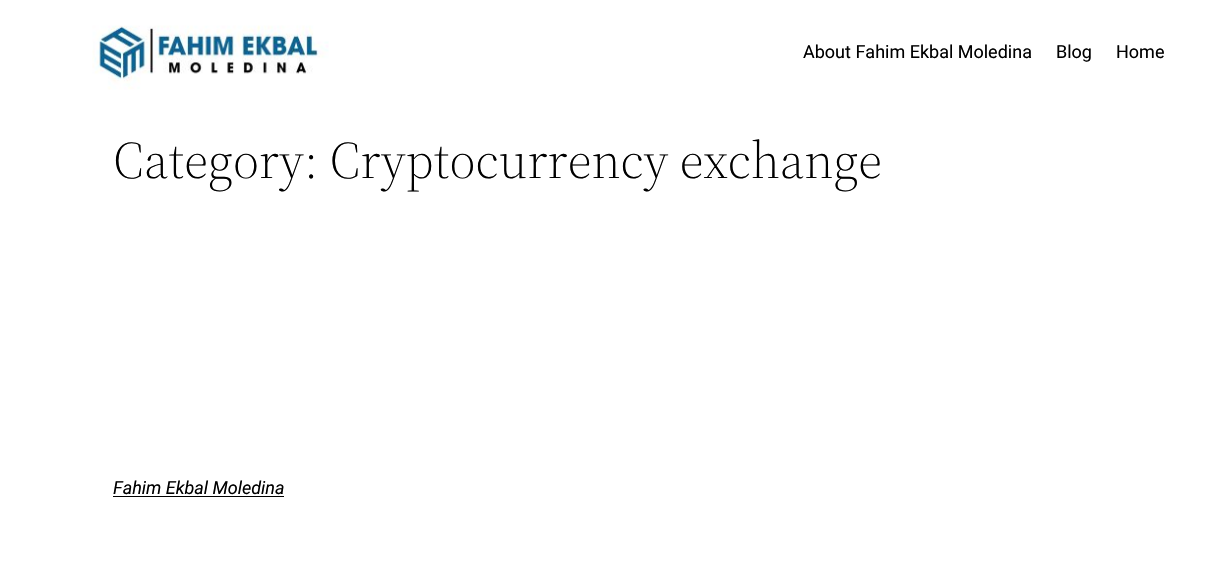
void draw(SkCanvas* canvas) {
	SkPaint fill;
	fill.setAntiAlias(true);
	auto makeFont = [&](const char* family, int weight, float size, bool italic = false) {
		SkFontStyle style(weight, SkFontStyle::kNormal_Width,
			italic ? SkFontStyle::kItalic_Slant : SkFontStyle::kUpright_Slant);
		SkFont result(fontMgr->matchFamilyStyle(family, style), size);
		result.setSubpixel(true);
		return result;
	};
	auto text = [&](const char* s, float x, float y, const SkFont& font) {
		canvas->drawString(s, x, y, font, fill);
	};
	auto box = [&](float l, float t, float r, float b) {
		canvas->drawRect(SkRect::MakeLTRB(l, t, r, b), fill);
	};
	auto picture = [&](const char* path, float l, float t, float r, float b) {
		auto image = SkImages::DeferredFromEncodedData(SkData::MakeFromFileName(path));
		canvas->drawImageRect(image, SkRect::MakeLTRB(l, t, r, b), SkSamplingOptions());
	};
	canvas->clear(0xFFFFFFFF);
	picture("image0.png", 92, 25, 329, 90);
	fill.setColor(0xFF000000);
	box(113, 496, 284, 497);
	auto font1 = makeFont("Roboto", 400, 18);
	text("About Fahim Ekbal Moledina", 803, 58, font1);
	text("Blog", 1056, 58, font1);
	text("Home", 1116, 58, font1);
	auto font2 = makeFont("Source Serif 4", 300, 52);
	text("Category: Cryptocurrency exchange", 113, 178, font2);
	auto font3 = makeFont("Roboto", 400, 18, true);
	text("Fahim Ekbal Moledina", 113, 494, font3);
}
